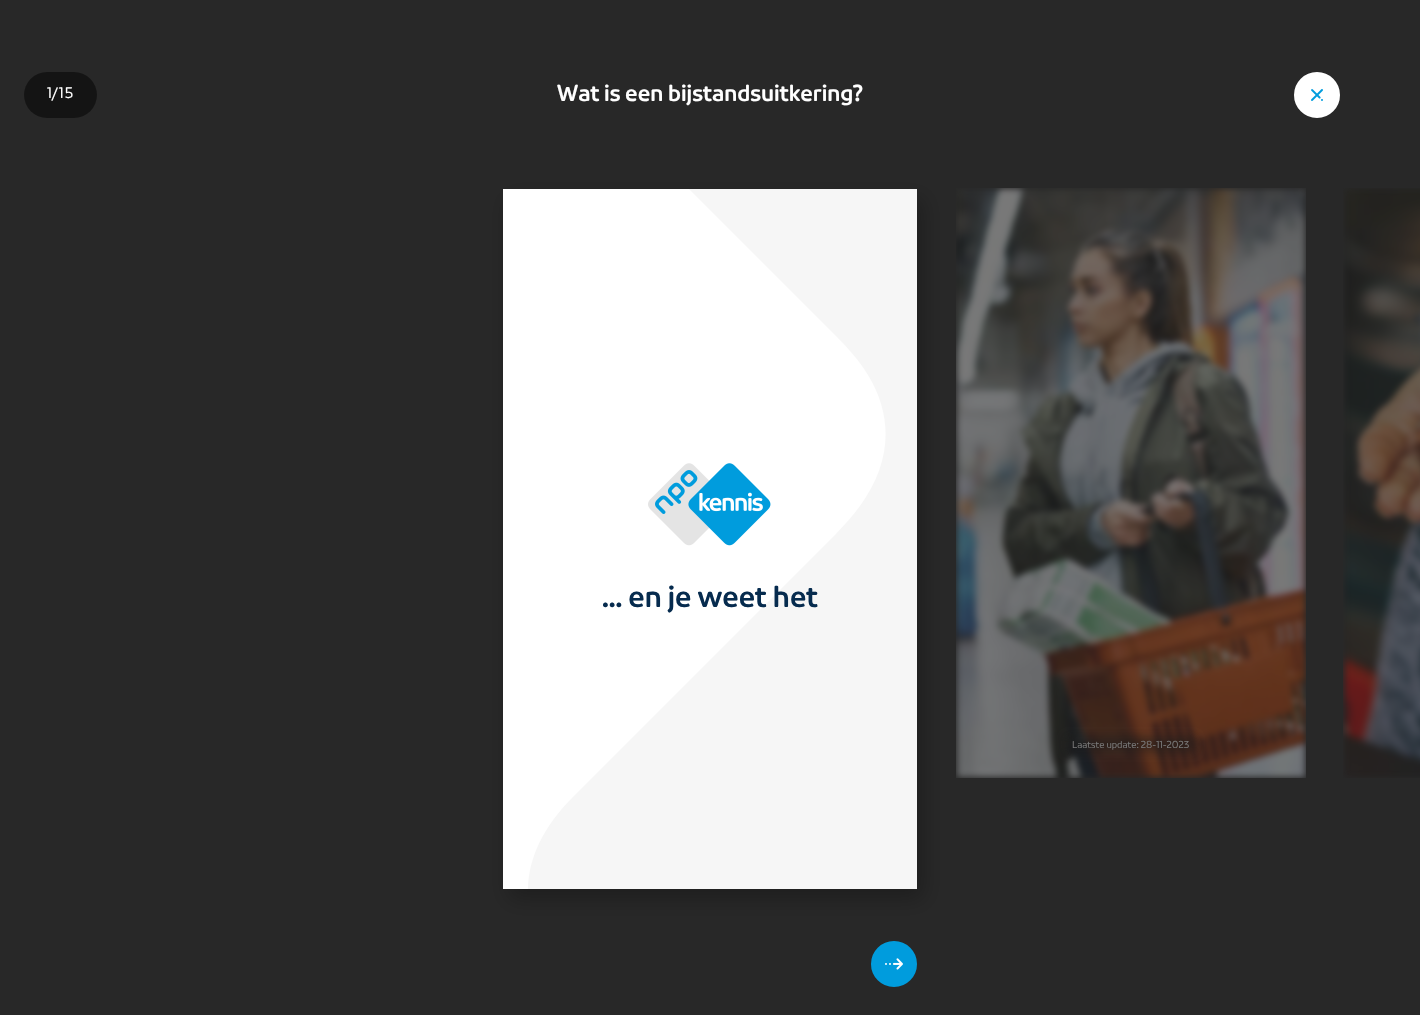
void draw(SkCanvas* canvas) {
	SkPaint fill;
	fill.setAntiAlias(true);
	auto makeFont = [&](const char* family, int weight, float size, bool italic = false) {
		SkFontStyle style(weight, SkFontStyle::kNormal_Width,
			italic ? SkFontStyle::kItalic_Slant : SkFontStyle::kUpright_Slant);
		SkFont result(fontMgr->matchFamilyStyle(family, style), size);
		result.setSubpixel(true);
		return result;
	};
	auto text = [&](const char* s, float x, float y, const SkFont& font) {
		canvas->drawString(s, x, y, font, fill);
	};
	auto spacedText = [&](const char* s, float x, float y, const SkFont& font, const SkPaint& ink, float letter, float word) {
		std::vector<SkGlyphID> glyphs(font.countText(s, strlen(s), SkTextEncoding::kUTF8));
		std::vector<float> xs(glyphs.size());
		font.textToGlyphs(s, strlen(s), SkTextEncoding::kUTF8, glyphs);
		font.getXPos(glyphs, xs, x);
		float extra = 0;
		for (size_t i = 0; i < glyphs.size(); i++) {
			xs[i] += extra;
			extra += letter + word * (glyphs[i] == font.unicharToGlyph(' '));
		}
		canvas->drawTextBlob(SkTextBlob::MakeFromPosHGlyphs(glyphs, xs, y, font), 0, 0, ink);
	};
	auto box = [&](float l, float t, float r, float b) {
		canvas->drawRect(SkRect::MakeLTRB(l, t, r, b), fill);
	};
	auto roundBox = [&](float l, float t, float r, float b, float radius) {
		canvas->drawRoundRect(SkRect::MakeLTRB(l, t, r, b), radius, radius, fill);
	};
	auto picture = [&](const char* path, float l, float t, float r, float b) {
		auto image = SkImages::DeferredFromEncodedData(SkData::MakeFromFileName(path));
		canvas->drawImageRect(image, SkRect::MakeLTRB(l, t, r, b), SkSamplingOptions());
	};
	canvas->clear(0xFF282828);
	fill.setColor(0xFF141414);
	roundBox(24, 72, 97, 118, 23);
	fill.setColor(0xFFFFFFFF);
	canvas->drawCircle(1317, 95, 22, fill);
	fill.setStyle(SkPaint::kStroke_Style);
	fill.setStrokeWidth(2);
	canvas->drawCircle(1317, 95, 22, fill);
	picture("image0.png", 1311, 89, 1323, 101);
	fill.setStyle(SkPaint::kFill_Style);
	fill.setColor(0x40000000);
	fill.setMaskFilter(SkMaskFilter::MakeBlur(kNormal_SkBlurStyle, 10));
	canvas->drawRect(SkRect::MakeLTRB(509, 199, 923, 899), fill);
	fill.setMaskFilter(nullptr);
	fill.setColor(0xFFFFFFFF);
	box(503, 189, 886, 889);
	canvas->save();
	canvas->clipRect(SkRect::MakeLTRB(528, 189, 917, 889));
	fill.setColor(0xFFF6F6F6);
	canvas->drawPath(SkPathBuilder().moveTo(921, -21).lineTo(528, -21).cubicTo(528, 11, 543, 42, 572, 72).lineTo(836, 336).cubicTo(848, 348, 859, 360, 868, 375).cubicTo(895, 419, 890, 465, 860, 506).cubicTo(853, 516, 844, 525, 836, 534).lineTo(573, 797).cubicTo(543, 827, 528, 859, 528, 891).lineTo(921, 891).close().detach(), fill);
	canvas->restore();
	picture("image1.png", 648, 463, 771, 546);
	picture("image2.png", 1343, 188, 1420, 778);
	picture("image3.png", 956, 188, 1306, 778);
	fill.setColor(0x80191919);
	fill.setMaskFilter(SkMaskFilter::MakeBlur(kNormal_SkBlurStyle, 4));
	canvas->drawRoundRect(SkRect::MakeLTRB(1067, 737, 1195, 752), 2.5f, 2.5f, fill);
	fill.setMaskFilter(nullptr);
	fill.setColor(0xFF009CDD);
	canvas->drawCircle(894, 964, 22, fill);
	fill.setStyle(SkPaint::kStroke_Style);
	canvas->drawCircle(894, 964, 22, fill);
	picture("image4.png", 885, 958, 903, 970);
	auto font1 = makeFont("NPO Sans", 400, 15);
	fill.setStyle(SkPaint::kFill_Style);
	fill.setColor(0xFFFFFFFF);
	spacedText("1/15", 47, 98, font1, fill, 1, 0);
	auto font2 = makeFont("NPO Sans", 700, 23);
	text("Wat is een bijstandsuitkering?", 557, 101, font2);
	auto font3 = makeFont("NPO Sans", 700, 30);
	fill.setColor(0xFF062B4E);
	text("... en je weet het", 602, 607, font3);
	auto font4 = makeFont("NPO Sans", 400, 10);
	fill.setColor(0xFF787878);
	text("Laatste update: 28-11-2023", 1072, 748, font4);
}
